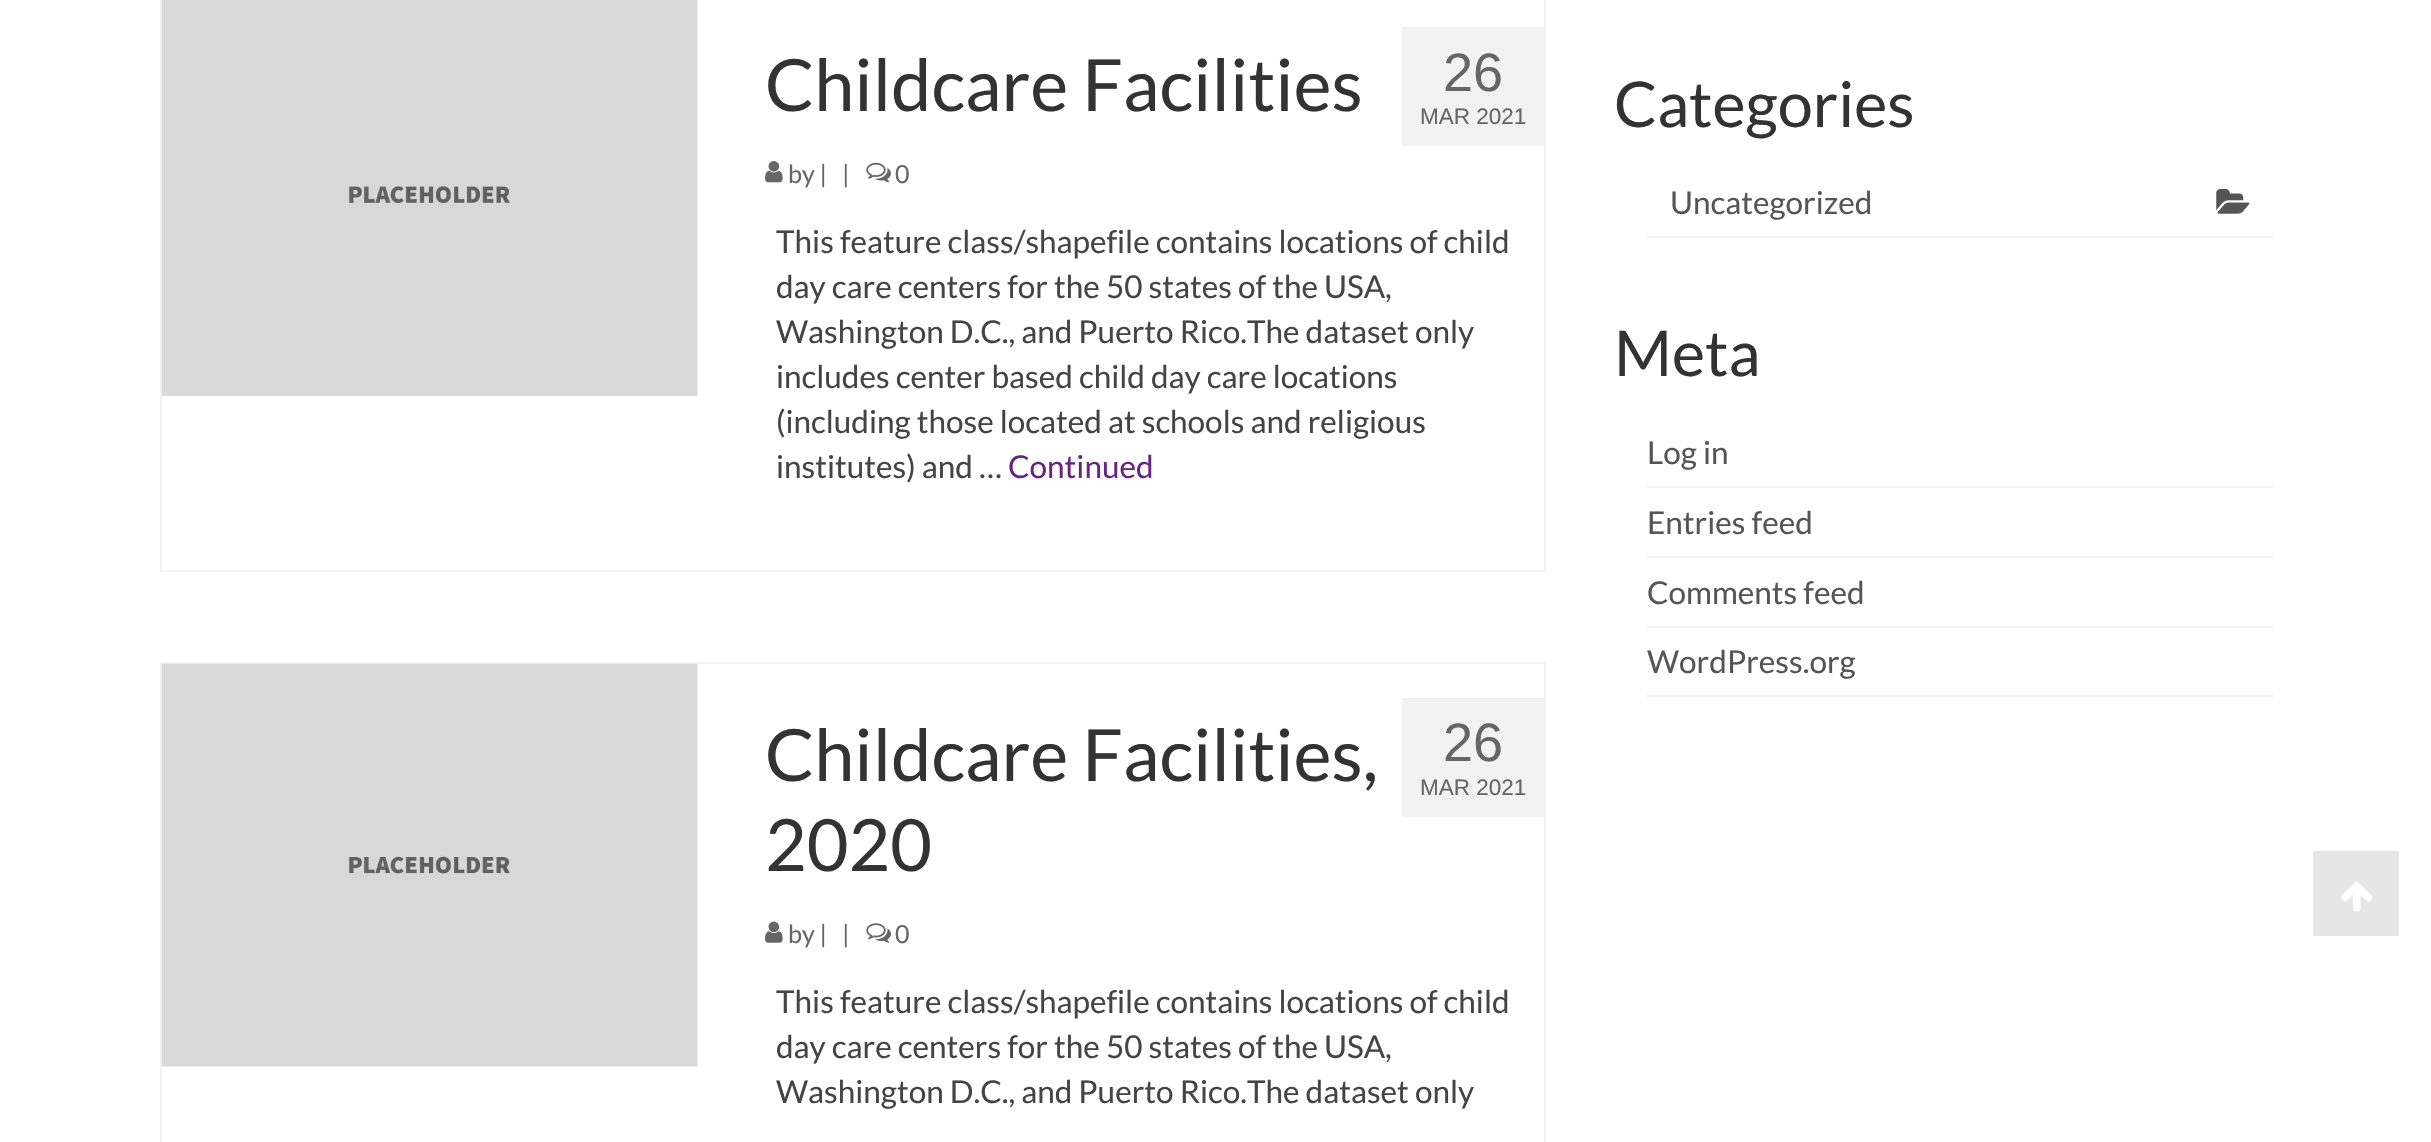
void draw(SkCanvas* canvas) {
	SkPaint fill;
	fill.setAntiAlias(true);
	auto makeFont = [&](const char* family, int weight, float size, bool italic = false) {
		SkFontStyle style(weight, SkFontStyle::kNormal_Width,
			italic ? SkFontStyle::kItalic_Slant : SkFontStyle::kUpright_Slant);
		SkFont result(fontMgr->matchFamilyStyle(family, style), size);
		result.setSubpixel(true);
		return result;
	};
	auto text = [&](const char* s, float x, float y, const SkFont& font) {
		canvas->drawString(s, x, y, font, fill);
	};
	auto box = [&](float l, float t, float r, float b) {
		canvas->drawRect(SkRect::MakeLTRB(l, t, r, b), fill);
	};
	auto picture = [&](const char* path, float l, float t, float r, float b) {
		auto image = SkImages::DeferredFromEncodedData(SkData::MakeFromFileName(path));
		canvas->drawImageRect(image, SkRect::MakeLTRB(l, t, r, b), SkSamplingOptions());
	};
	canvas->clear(0xFFFFFFFF);
	fill.setStyle(SkPaint::kStroke_Style);
	fill.setStrokeWidth(2);
	fill.setColor(0xFFF2F2F2);
	canvas->drawRect(SkRect::MakeLTRB(161, -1, 1545, 571), fill);
	picture("image0.png", 162, 0, 698, 396);
	picture("image1.png", 765, 161, 783, 183);
	picture("image2.png", 866, 162, 891, 183);
	fill.setStyle(SkPaint::kFill_Style);
	box(1402, 27, 1544, 146);
	fill.setStyle(SkPaint::kStroke_Style);
	canvas->drawRect(SkRect::MakeLTRB(161, 663, 1545, 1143), fill);
	picture("image3.png", 162, 663, 698, 1067);
	picture("image4.png", 765, 921, 783, 943);
	picture("image5.png", 866, 923, 891, 943);
	fill.setStyle(SkPaint::kFill_Style);
	box(1402, 698, 1544, 817);
	box(1647, 236, 2273, 238);
	picture("image6.png", 2216, 189, 2250, 214);
	box(1647, 486, 2273, 488);
	box(1647, 556, 2273, 558);
	box(1647, 626, 2273, 628);
	box(1647, 695, 2273, 697);
	fill.setColor(0xFFE6E6E6);
	box(2313, 851, 2399, 936);
	picture("image7.png", 2341, 881, 2373, 912);
	auto font1 = makeFont("Lato", 400, 72);
	fill.setColor(0xFF333333);
	text("Childcare Facilities", 765, 111, font1);
	auto font2 = makeFont("Lato", 400, 25);
	fill.setColor(0xFF666666);
	text("by |", 788, 183, font2);
	text("|", 842, 183, font2);
	text("0", 895, 183, font2);
	auto font3 = makeFont("Liberation Sans", 400, 54);
	text("26", 1443, 91, font3);
	auto font4 = makeFont("Liberation Sans", 400, 22.5f);
	text("MAR 2021", 1420, 124, font4);
	auto font5 = makeFont("Lato", 400, 31.5f);
	fill.setColor(0xFF444444);
	text("This feature class/shapefile contains locations of child", 776, 253, font5);
	text("day care centers for the 50 states of the USA,", 776, 298, font5);
	text("Washington D.C., and Puerto Rico.The dataset only", 776, 343, font5);
	text("includes center based child day care locations", 776, 388, font5);
	text("(including those located at schools and religious", 776, 433, font5);
	text("institutes) and …", 776, 478, font5);
	fill.setColor(0xFF692384);
	text("Continued", 1008, 478, font5);
	fill.setColor(0xFF333333);
	text("Childcare Facilities,", 765, 781, font1);
	text("2020", 765, 871, font1);
	fill.setColor(0xFF666666);
	text("by |", 788, 943, font2);
	text("|", 842, 943, font2);
	text("0", 895, 943, font2);
	text("26", 1443, 761, font3);
	text("MAR 2021", 1420, 795, font4);
	fill.setColor(0xFF444444);
	text("This feature class/shapefile contains locations of child", 776, 1013, font5);
	text("day care centers for the 50 states of the USA,", 776, 1058, font5);
	text("Washington D.C., and Puerto Rico.The dataset only", 776, 1103, font5);
	auto font6 = makeFont("Lato", 400, 63);
	fill.setColor(0xFF333333);
	text("Categories", 1614, 127, font6);
	fill.setColor(0xFF555555);
	text("Uncategorized", 1670, 214, font5);
	fill.setColor(0xFF333333);
	text("Meta", 1614, 376, font6);
	fill.setColor(0xFF555555);
	text("Log in", 1647, 464, font5);
	text("Entries feed", 1647, 534, font5);
	text("Comments feed", 1647, 604, font5);
	text("WordPress.org", 1647, 673, font5);
}
